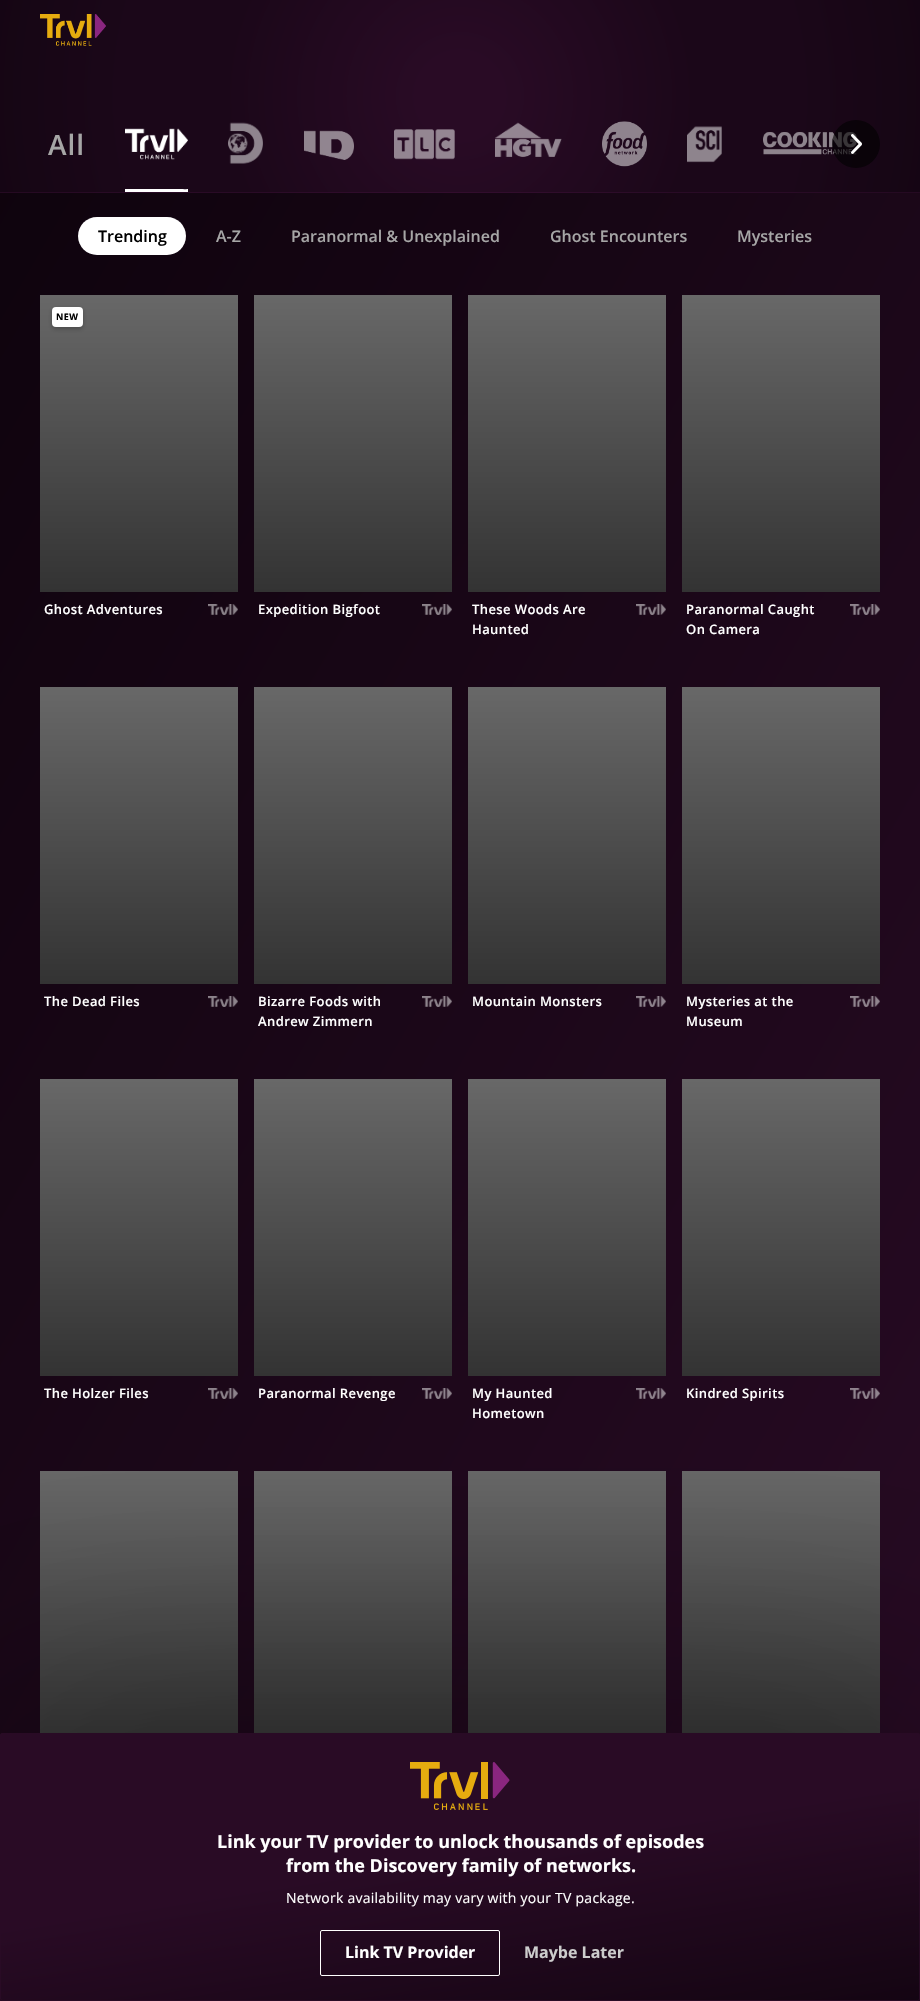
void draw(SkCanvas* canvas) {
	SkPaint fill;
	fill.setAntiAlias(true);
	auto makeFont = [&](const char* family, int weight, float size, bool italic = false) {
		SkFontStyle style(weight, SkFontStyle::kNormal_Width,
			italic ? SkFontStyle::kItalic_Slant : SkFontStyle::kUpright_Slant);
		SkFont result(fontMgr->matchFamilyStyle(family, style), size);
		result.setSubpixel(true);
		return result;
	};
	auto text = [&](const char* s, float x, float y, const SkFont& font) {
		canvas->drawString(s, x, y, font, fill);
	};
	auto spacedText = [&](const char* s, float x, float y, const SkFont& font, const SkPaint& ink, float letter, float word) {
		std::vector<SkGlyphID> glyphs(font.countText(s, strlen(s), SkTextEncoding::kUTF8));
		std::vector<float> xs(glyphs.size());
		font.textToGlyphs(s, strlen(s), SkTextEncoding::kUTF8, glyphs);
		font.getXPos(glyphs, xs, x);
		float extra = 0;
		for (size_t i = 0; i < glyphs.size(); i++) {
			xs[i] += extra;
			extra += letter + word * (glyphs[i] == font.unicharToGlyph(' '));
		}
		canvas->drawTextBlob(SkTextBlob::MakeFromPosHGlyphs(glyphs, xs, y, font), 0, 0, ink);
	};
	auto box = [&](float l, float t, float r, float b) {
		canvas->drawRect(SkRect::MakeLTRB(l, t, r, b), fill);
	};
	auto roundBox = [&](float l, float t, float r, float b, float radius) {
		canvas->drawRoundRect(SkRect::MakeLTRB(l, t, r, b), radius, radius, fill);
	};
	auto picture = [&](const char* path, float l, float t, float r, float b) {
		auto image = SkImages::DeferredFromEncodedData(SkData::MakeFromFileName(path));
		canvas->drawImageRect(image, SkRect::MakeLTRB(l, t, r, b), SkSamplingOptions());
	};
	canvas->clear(0xFF0D030C);
	{
		const SkColor colors[] = {0xFF290B25, 0xFF1B0719, 0xFF1B0719, 0xFF0D030C};
		const float stops[] = {0.06f, 0.36f, 0.51f, 1};
		fill.setShader(SkGradientShader::MakeRadial({460, 96}, 658, colors, stops, 4, SkTileMode::kClamp));
		fill.setAlpha(255);
	}
	box(0, 0, 920, 192);
	picture("image0.png", 40, 14, 106, 46);
	{
		const SkColor colors[] = {0xFF0D030C, 0xFF290B25};
		const float stops[] = {0, 1};
		const SkPoint ends[] = {{-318, 551}, {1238, 1450}};
		fill.setShader(SkGradientShader::MakeLinear(ends, colors, stops, 2, SkTileMode::kClamp));
		fill.setAlpha(255);
	}
	box(0, 193, 920, 1735);
	{
		const SkColor colors[] = {0xFF350E30, 0xFF290B26, 0xFF290B26, 0xFF1E081B};
		const float stops[] = {0.06f, 0.36f, 0.51f, 1};
		fill.setShader(SkGradientShader::MakeRadial({460, 288}, 658, colors, stops, 4, SkTileMode::kClamp));
		fill.setAlpha(255);
	}
	box(0, 192, 920, 193);
	canvas->save();
	canvas->clipRect(SkRect::MakeLTRB(125, 96, 188, 192));
	fill.setShader(nullptr);
	fill.setColor(0xFFFFFFFF);
	canvas->drawPath(SkPathBuilder(SkPathFillType::kEvenOdd).moveTo(26, -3).lineTo(287, -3).lineTo(287, 291).lineTo(26, 291).close().moveTo(125, 91).lineTo(178, 91).cubicTo(194, 91, 189, 88, 189, 108).lineTo(189, 172).cubicTo(189, 192, 194, 189, 178, 189).lineTo(125, 189).lineTo(124, 188).lineTo(124, 92).close().detach(), fill);
	canvas->restore();
	picture("image1.png", 125, 128, 188, 160);
	picture("image2.png", 228, 122, 263, 164);
	picture("image3.png", 304, 130, 354, 160);
	picture("image4.png", 394, 129, 455, 160);
	picture("image5.png", 495, 122, 562, 157);
	picture("image6.png", 602, 121, 647, 167);
	picture("image7.png", 687, 126, 722, 163);
	picture("image8.png", 763, 132, 857, 155);
	fill.setColor(0x99000000);
	canvas->drawCircle(856, 144, 24, fill);
	picture("image9.png", 851, 134, 862, 154);
	fill.setColor(0xFFFFFFFF);
	roundBox(78, 217, 186, 255, 19);
	{
		const SkColor colors[] = {0xFF686868, 0xFF333333};
		const float stops[] = {0, 1};
		const SkPoint ends[] = {{139, 295}, {139, 592}};
		fill.setShader(SkGradientShader::MakeLinear(ends, colors, stops, 2, SkTileMode::kClamp));
		fill.setAlpha(255);
	}
	box(40, 295, 238, 592);
	fill.setShader(nullptr);
	fill.setColor(0x40000000);
	fill.setMaskFilter(SkMaskFilter::MakeBlur(kNormal_SkBlurStyle, 2));
	canvas->drawRoundRect(SkRect::MakeLTRB(52, 309, 83, 329), 4, 4, fill);
	fill.setMaskFilter(nullptr);
	fill.setColor(0xFFFFFFFF);
	roundBox(52, 307, 83, 327, 4);
	picture("image10.png", 208, 604, 238, 615);
	{
		const SkColor colors[] = {0xFF686868, 0xFF333333};
		const float stops[] = {0, 1};
		const SkPoint ends[] = {{353, 295}, {353, 592}};
		fill.setShader(SkGradientShader::MakeLinear(ends, colors, stops, 2, SkTileMode::kClamp));
		fill.setAlpha(255);
	}
	box(254, 295, 452, 592);
	picture("image11.png", 422, 604, 452, 615);
	{
		const SkColor colors[] = {0xFF686868, 0xFF333333};
		const float stops[] = {0, 1};
		const SkPoint ends[] = {{567, 295}, {567, 592}};
		fill.setShader(SkGradientShader::MakeLinear(ends, colors, stops, 2, SkTileMode::kClamp));
		fill.setAlpha(255);
	}
	box(468, 295, 666, 592);
	picture("image12.png", 636, 604, 666, 615);
	{
		const SkColor colors[] = {0xFF686868, 0xFF333333};
		const float stops[] = {0, 1};
		const SkPoint ends[] = {{781, 295}, {781, 592}};
		fill.setShader(SkGradientShader::MakeLinear(ends, colors, stops, 2, SkTileMode::kClamp));
		fill.setAlpha(255);
	}
	box(682, 295, 880, 592);
	picture("image13.png", 850, 604, 880, 615);
	{
		const SkColor colors[] = {0xFF686868, 0xFF333333};
		const float stops[] = {0, 1};
		const SkPoint ends[] = {{139, 687}, {139, 984}};
		fill.setShader(SkGradientShader::MakeLinear(ends, colors, stops, 2, SkTileMode::kClamp));
		fill.setAlpha(255);
	}
	box(40, 687, 238, 984);
	picture("image14.png", 208, 996, 238, 1007);
	{
		const SkColor colors[] = {0xFF686868, 0xFF333333};
		const float stops[] = {0, 1};
		const SkPoint ends[] = {{353, 687}, {353, 984}};
		fill.setShader(SkGradientShader::MakeLinear(ends, colors, stops, 2, SkTileMode::kClamp));
		fill.setAlpha(255);
	}
	box(254, 687, 452, 984);
	picture("image15.png", 422, 996, 452, 1007);
	{
		const SkColor colors[] = {0xFF686868, 0xFF333333};
		const float stops[] = {0, 1};
		const SkPoint ends[] = {{567, 687}, {567, 984}};
		fill.setShader(SkGradientShader::MakeLinear(ends, colors, stops, 2, SkTileMode::kClamp));
		fill.setAlpha(255);
	}
	box(468, 687, 666, 984);
	picture("image16.png", 636, 996, 666, 1007);
	{
		const SkColor colors[] = {0xFF686868, 0xFF333333};
		const float stops[] = {0, 1};
		const SkPoint ends[] = {{781, 687}, {781, 984}};
		fill.setShader(SkGradientShader::MakeLinear(ends, colors, stops, 2, SkTileMode::kClamp));
		fill.setAlpha(255);
	}
	box(682, 687, 880, 984);
	picture("image17.png", 850, 996, 880, 1007);
	{
		const SkColor colors[] = {0xFF686868, 0xFF333333};
		const float stops[] = {0, 1};
		const SkPoint ends[] = {{139, 1079}, {139, 1376}};
		fill.setShader(SkGradientShader::MakeLinear(ends, colors, stops, 2, SkTileMode::kClamp));
		fill.setAlpha(255);
	}
	box(40, 1079, 238, 1376);
	picture("image18.png", 208, 1388, 238, 1399);
	{
		const SkColor colors[] = {0xFF686868, 0xFF333333};
		const float stops[] = {0, 1};
		const SkPoint ends[] = {{353, 1079}, {353, 1376}};
		fill.setShader(SkGradientShader::MakeLinear(ends, colors, stops, 2, SkTileMode::kClamp));
		fill.setAlpha(255);
	}
	box(254, 1079, 452, 1376);
	picture("image19.png", 422, 1388, 452, 1399);
	{
		const SkColor colors[] = {0xFF686868, 0xFF333333};
		const float stops[] = {0, 1};
		const SkPoint ends[] = {{567, 1079}, {567, 1376}};
		fill.setShader(SkGradientShader::MakeLinear(ends, colors, stops, 2, SkTileMode::kClamp));
		fill.setAlpha(255);
	}
	box(468, 1079, 666, 1376);
	picture("image20.png", 636, 1388, 666, 1399);
	{
		const SkColor colors[] = {0xFF686868, 0xFF333333};
		const float stops[] = {0, 1};
		const SkPoint ends[] = {{781, 1079}, {781, 1376}};
		fill.setShader(SkGradientShader::MakeLinear(ends, colors, stops, 2, SkTileMode::kClamp));
		fill.setAlpha(255);
	}
	box(682, 1079, 880, 1376);
	picture("image21.png", 850, 1388, 880, 1399);
	{
		const SkColor colors[] = {0xFF686868, 0xFF333333};
		const float stops[] = {0, 1};
		const SkPoint ends[] = {{139, 1471}, {139, 1768}};
		fill.setShader(SkGradientShader::MakeLinear(ends, colors, stops, 2, SkTileMode::kClamp));
		fill.setAlpha(255);
	}
	box(40, 1471, 238, 1733);
	{
		const SkColor colors[] = {0xFF686868, 0xFF333333};
		const float stops[] = {0, 1};
		const SkPoint ends[] = {{353, 1471}, {353, 1768}};
		fill.setShader(SkGradientShader::MakeLinear(ends, colors, stops, 2, SkTileMode::kClamp));
		fill.setAlpha(255);
	}
	box(254, 1471, 452, 1733);
	{
		const SkColor colors[] = {0xFF686868, 0xFF333333};
		const float stops[] = {0, 1};
		const SkPoint ends[] = {{567, 1471}, {567, 1768}};
		fill.setShader(SkGradientShader::MakeLinear(ends, colors, stops, 2, SkTileMode::kClamp));
		fill.setAlpha(255);
	}
	box(468, 1471, 666, 1733);
	{
		const SkColor colors[] = {0xFF686868, 0xFF333333};
		const float stops[] = {0, 1};
		const SkPoint ends[] = {{781, 1471}, {781, 1768}};
		fill.setShader(SkGradientShader::MakeLinear(ends, colors, stops, 2, SkTileMode::kClamp));
		fill.setAlpha(255);
	}
	box(682, 1471, 880, 1733);
	fill.setShader(nullptr);
	fill.setColor(0x4D000000);
	fill.setMaskFilter(SkMaskFilter::MakeBlur(kNormal_SkBlurStyle, 150));
	canvas->drawRoundRect(SkRect::MakeLTRB(-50, 1683, 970, 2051), 52, 52, fill);
	fill.setMaskFilter(nullptr);
	{
		const SkColor colors[] = {0xFF290B25, 0xFF0D030C};
		const float stops[] = {0.4f, 1};
		const SkPoint ends[] = {{428, 1666}, {503, 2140}};
		fill.setShader(SkGradientShader::MakeLinear(ends, colors, stops, 2, SkTileMode::kClamp));
		fill.setAlpha(255);
	}
	box(1, 1734, 919, 2000);
	{
		const SkColor colors[] = {0xFF290B25, 0xFF0D030C};
		const float stops[] = {0.4f, 1};
		const SkPoint ends[] = {{-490, 1932}, {-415, 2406}};
		fill.setShader(SkGradientShader::MakeLinear(ends, colors, stops, 2, SkTileMode::kClamp));
		fill.setAlpha(255);
	}
	box(0, 2000, 1, 2001);
	{
		const SkColor colors[] = {0xFF290B25, 0xFF0D030C};
		const float stops[] = {0.4f, 1};
		const SkPoint ends[] = {{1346, 1932}, {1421, 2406}};
		fill.setShader(SkGradientShader::MakeLinear(ends, colors, stops, 2, SkTileMode::kClamp));
		fill.setAlpha(255);
	}
	box(919, 2000, 920, 2001);
	fill.setStyle(SkPaint::kStroke_Style);
	fill.setStrokeWidth(1);
	fill.setShader(nullptr);
	fill.setColor(0xFF290B25);
	canvas->drawRoundRect(SkRect::MakeLTRB(0.5f, 1733.5f, 919.5f, 2000.5f), 1.5f, 1.5f, fill);
	picture("image22.png", 410, 1762, 510, 1810);
	fill.setColor(0xFFFFFFFF);
	canvas->drawRoundRect(SkRect::MakeLTRB(320.5f, 1930.5f, 499.5f, 1975.5f), 1.5f, 1.5f, fill);
	auto font1 = makeFont("Open Sans", 600, 28);
	fill.setStyle(SkPaint::kFill_Style);
	fill.setColor(0xFFA6A6A6);
	spacedText("All", 48, 155, font1, fill, 1, 0);
	auto font2 = makeFont("Open Sans", 600, 16);
	fill.setColor(0xFF000000);
	text("Trending", 98, 242, font2);
	fill.setColor(0xFFA6A6A6);
	text("A-Z", 216, 242, font2);
	text("Paranormal & Unexplained", 291, 242, font2);
	text("Ghost Encounters", 550, 242, font2);
	text("Mysteries", 737, 242, font2);
	auto font3 = makeFont("Open Sans", 700, 9);
	fill.setColor(0xFF000000);
	spacedText("NEW", 56, 320, font3, fill, 0.5f, 0);
	auto font4 = makeFont("Open Sans", 600, 13);
	fill.setColor(0xFFFFFFFF);
	spacedText("Ghost Adventures", 44, 614, font4, fill, 0.4f, 0);
	spacedText("Expedition Bigfoot", 258, 614, font4, fill, 0.4f, 0);
	spacedText("These Woods Are", 472, 614, font4, fill, 0.4f, 0);
	spacedText("Haunted", 472, 634, font4, fill, 0.4f, 0);
	spacedText("Paranormal Caught", 686, 614, font4, fill, 0.4f, 0);
	spacedText("On Camera", 686, 634, font4, fill, 0.4f, 0);
	spacedText("The Dead Files", 44, 1006, font4, fill, 0.4f, 0);
	spacedText("Bizarre Foods with", 258, 1006, font4, fill, 0.4f, 0);
	spacedText("Andrew Zimmern", 258, 1026, font4, fill, 0.4f, 0);
	spacedText("Mountain Monsters", 472, 1006, font4, fill, 0.4f, 0);
	spacedText("Mysteries at the", 686, 1006, font4, fill, 0.4f, 0);
	spacedText("Museum", 686, 1026, font4, fill, 0.4f, 0);
	spacedText("The Holzer Files", 44, 1398, font4, fill, 0.4f, 0);
	spacedText("Paranormal Revenge", 258, 1398, font4, fill, 0.4f, 0);
	spacedText("My Haunted", 472, 1398, font4, fill, 0.4f, 0);
	spacedText("Hometown", 472, 1418, font4, fill, 0.4f, 0);
	spacedText("Kindred Spirits", 686, 1398, font4, fill, 0.4f, 0);
	auto font5 = makeFont("Open Sans", 700, 18);
	text("Link your TV provider to unlock thousands of episodes", 217, 1848, font5);
	text("from the Discovery family of networks.", 286, 1872, font5);
	auto font6 = makeFont("Open Sans", 400, 14);
	spacedText("Network availability may vary with your TV package.", 286, 1903, font6, fill, 0.25f, 0);
	auto font7 = makeFont("Open Sans", 700, 16);
	text("Link TV Provider", 345, 1958, font7);
	fill.setColor(0xFFCCCCCC);
	text("Maybe Later", 524, 1958, font7);
}
